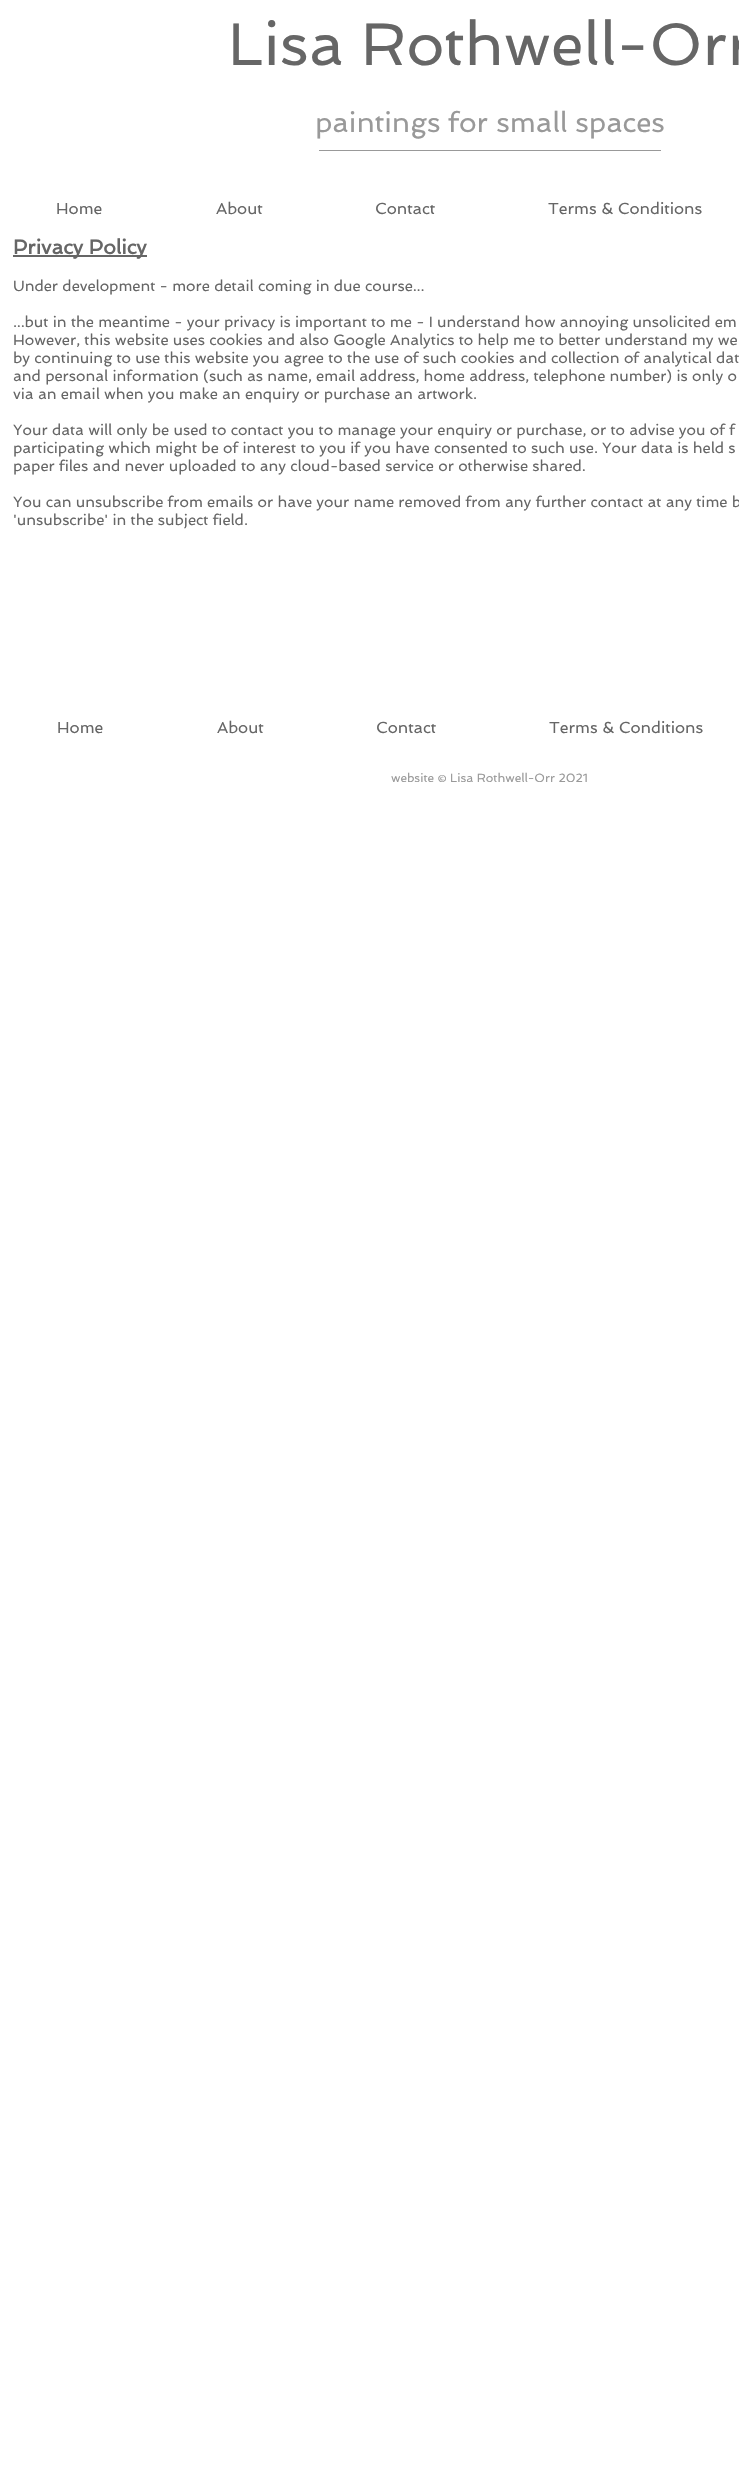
void draw(SkCanvas* canvas) {
	SkPaint fill;
	fill.setAntiAlias(true);
	auto makeFont = [&](const char* family, int weight, float size, bool italic = false) {
		SkFontStyle style(weight, SkFontStyle::kNormal_Width,
			italic ? SkFontStyle::kItalic_Slant : SkFontStyle::kUpright_Slant);
		SkFont result(fontMgr->matchFamilyStyle(family, style), size);
		result.setSubpixel(true);
		return result;
	};
	auto text = [&](const char* s, float x, float y, const SkFont& font) {
		canvas->drawString(s, x, y, font, fill);
	};
	auto box = [&](float l, float t, float r, float b) {
		canvas->drawRect(SkRect::MakeLTRB(l, t, r, b), fill);
	};
	canvas->clear(0xFFFFFFFF);
	fill.setColor(0xFF999999);
	box(319, 150, 661, 151);
	fill.setColor(0xFF666666);
	box(13, 255, 147, 257);
	auto font1 = makeFont("Spinnaker", 400, 60);
	text("Lisa Rothwell-Orr", 228, 65, font1);
	auto font2 = makeFont("Spinnaker", 400, 28);
	fill.setColor(0xFF999999);
	text("paintings for small spaces", 315, 132, font2);
	auto font3 = makeFont("Spinnaker", 400, 16);
	fill.setColor(0xFF666666);
	text("Home", 56, 214, font3);
	text("About", 216, 214, font3);
	text("Contact", 375, 214, font3);
	text("Terms & Conditions", 548, 214, font3);
	auto font4 = makeFont("Spinnaker", 700, 20);
	text("Privacy Policy", 13, 254, font4);
	auto font5 = makeFont("Spinnaker", 400, 15);
	text("Under development - more detail coming in due course...", 13, 291, font5);
	text("...but in the meantime - your privacy is important to me - I understand how annoying unsolicited em", 13, 327, font5);
	text("However, this website uses cookies and also Google Analytics to help me to better understand my we", 13, 345, font5);
	text("by continuing to use this website you agree to the use of such cookies and collection of analytical dat", 13, 363, font5);
	text("and personal information (such as name, email address, home address, telephone number) is only o", 13, 381, font5);
	text("via an email when you make an enquiry or purchase an artwork.", 13, 399, font5);
	text("Your data will only be used to contact you to manage your enquiry or purchase, or to advise you of f", 13, 435, font5);
	text("participating which might be of interest to you if you have consented to such use. Your data is held s", 13, 453, font5);
	text("paper files and never uploaded to any cloud-based service or otherwise shared.", 13, 471, font5);
	text("You can unsubscribe from emails or have your name removed from any further contact at any time b", 13, 507, font5);
	text("'unsubscribe' in the subject field.", 13, 525, font5);
	text("Home", 57, 733, font3);
	text("About", 217, 733, font3);
	text("Contact", 376, 733, font3);
	text("Terms & Conditions", 549, 733, font3);
	auto font6 = makeFont("Spinnaker", 400, 12);
	fill.setColor(0xFF999999);
	text("website © Lisa Rothwell-Orr 2021", 391, 782, font6);
}
